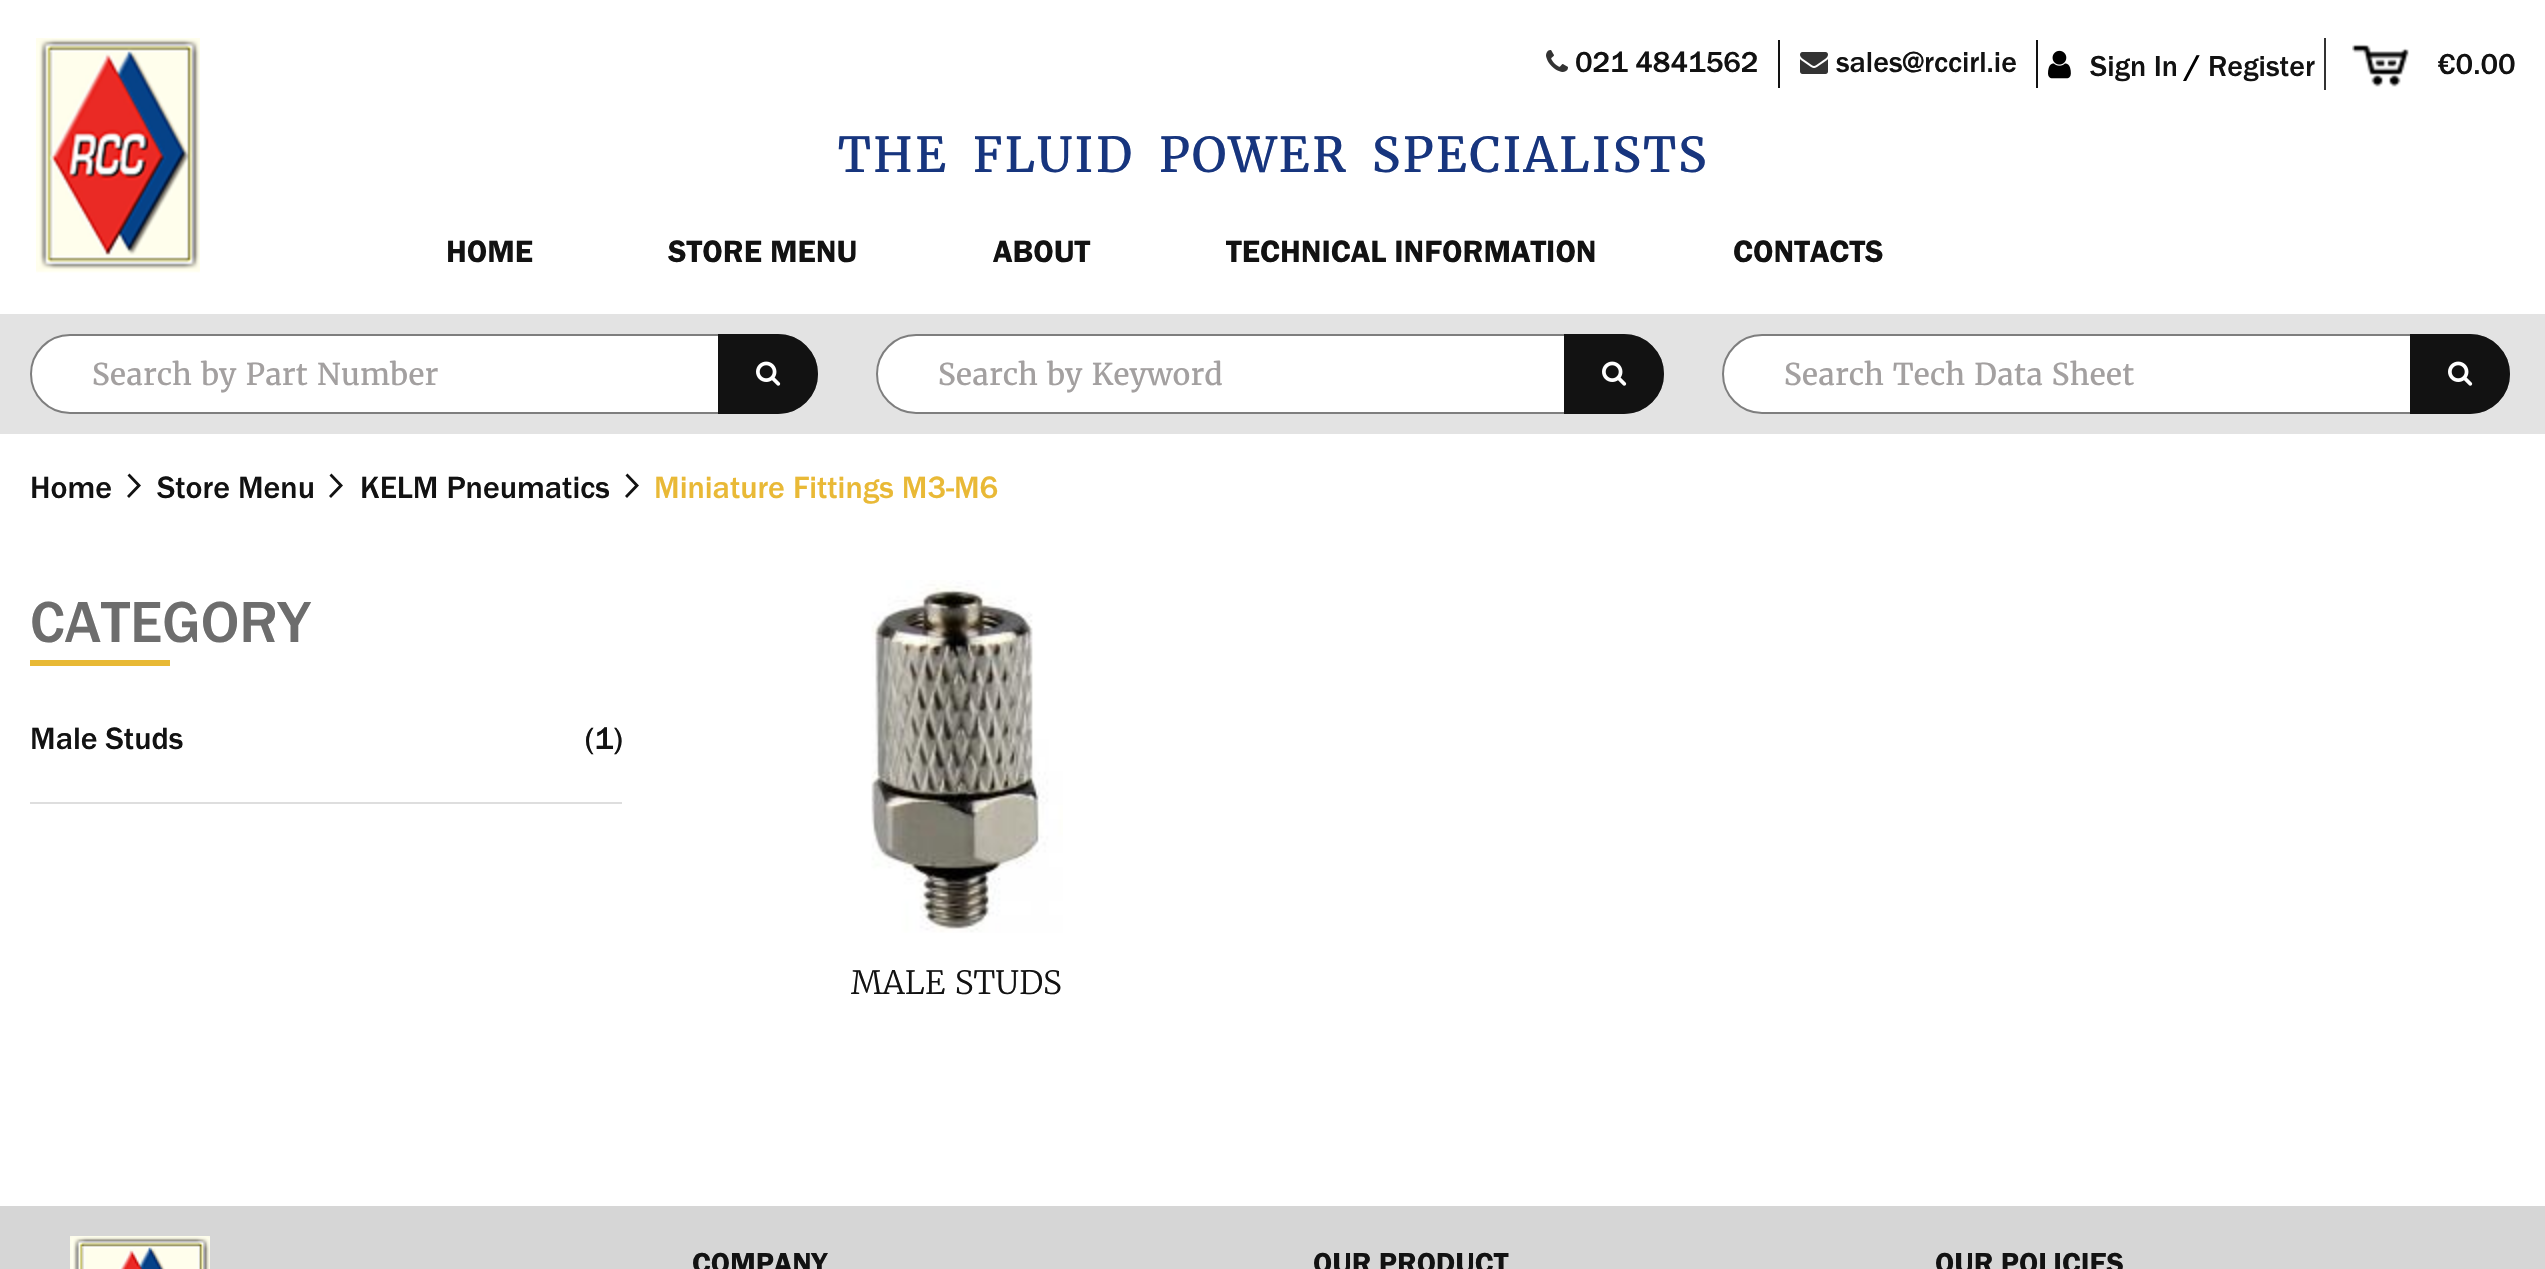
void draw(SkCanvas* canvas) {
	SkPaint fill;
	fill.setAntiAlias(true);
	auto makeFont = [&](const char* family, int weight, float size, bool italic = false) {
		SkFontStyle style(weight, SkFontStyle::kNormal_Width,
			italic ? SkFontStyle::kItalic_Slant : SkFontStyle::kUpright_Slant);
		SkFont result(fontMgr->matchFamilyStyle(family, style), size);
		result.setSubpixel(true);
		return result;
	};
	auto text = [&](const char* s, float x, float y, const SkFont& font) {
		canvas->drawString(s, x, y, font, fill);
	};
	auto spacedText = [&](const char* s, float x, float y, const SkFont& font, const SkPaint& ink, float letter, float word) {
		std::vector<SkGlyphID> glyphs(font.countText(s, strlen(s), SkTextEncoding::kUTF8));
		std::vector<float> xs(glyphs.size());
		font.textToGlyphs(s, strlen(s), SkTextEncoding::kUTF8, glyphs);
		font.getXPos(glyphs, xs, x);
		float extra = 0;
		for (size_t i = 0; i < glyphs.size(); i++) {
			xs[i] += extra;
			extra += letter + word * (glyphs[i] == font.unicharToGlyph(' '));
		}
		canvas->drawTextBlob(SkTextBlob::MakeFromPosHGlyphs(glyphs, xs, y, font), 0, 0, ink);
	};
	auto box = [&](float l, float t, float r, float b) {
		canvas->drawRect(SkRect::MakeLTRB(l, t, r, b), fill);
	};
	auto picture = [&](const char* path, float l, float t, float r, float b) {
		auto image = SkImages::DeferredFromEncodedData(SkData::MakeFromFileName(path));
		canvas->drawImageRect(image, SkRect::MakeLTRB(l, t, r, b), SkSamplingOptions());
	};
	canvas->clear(0xFFFFFFFF);
	picture("image0.png", 36, 38, 200, 273);
	fill.setColor(0xFF121212);
	box(1778, 40, 1780, 88);
	picture("image1.png", 1546, 50, 1568, 72);
	box(2036, 40, 2038, 88);
	picture("image2.png", 1800, 52, 1828, 74);
	fill.setColor(0xFF333333);
	box(2324, 38, 2326, 90);
	picture("image3.png", 2048, 50, 2071, 79);
	picture("image4.png", 2352, 44, 2409, 87);
	fill.setColor(0xFFE3E3E3);
	box(0, 314, 2545, 434);
	fill.setColor(0xFFFFFFFF);
	canvas->drawRoundRect(SkRect::MakeLTRB(31, 335, 817, 413), 39, 39, fill);
	fill.setStyle(SkPaint::kStroke_Style);
	fill.setStrokeWidth(2);
	fill.setColor(0xFF7E7E7E);
	canvas->drawRoundRect(SkRect::MakeLTRB(31, 335, 817, 413), 39, 39, fill);
	fill.setStyle(SkPaint::kFill_Style);
	fill.setColor(0xFF121212);
	canvas->drawPath(SkPathBuilder().moveTo(719, 335).lineTo(778, 335).cubicTo(799.5f, 335, 817, 352.5f, 817, 374).cubicTo(817, 395.5f, 799.5f, 413, 778, 413).lineTo(719, 413).close().detach(), fill);
	fill.setStyle(SkPaint::kStroke_Style);
	canvas->drawPath(SkPathBuilder().moveTo(719, 335).lineTo(778, 335).cubicTo(799.5f, 335, 817, 352.5f, 817, 374).cubicTo(817, 395.5f, 799.5f, 413, 778, 413).lineTo(719, 413).close().detach(), fill);
	picture("image5.png", 756, 361, 781, 386);
	fill.setStyle(SkPaint::kFill_Style);
	fill.setColor(0xFFFFFFFF);
	canvas->drawRoundRect(SkRect::MakeLTRB(877, 335, 1663, 413), 39, 39, fill);
	fill.setStyle(SkPaint::kStroke_Style);
	fill.setColor(0xFF7E7E7E);
	canvas->drawRoundRect(SkRect::MakeLTRB(877, 335, 1663, 413), 39, 39, fill);
	fill.setStyle(SkPaint::kFill_Style);
	fill.setColor(0xFF121212);
	canvas->drawPath(SkPathBuilder().moveTo(1565, 335).lineTo(1624, 335).cubicTo(1645.5f, 335, 1663, 352.5f, 1663, 374).cubicTo(1663, 395.5f, 1645.5f, 413, 1624, 413).lineTo(1565, 413).close().detach(), fill);
	fill.setStyle(SkPaint::kStroke_Style);
	canvas->drawPath(SkPathBuilder().moveTo(1565, 335).lineTo(1624, 335).cubicTo(1645.5f, 335, 1663, 352.5f, 1663, 374).cubicTo(1663, 395.5f, 1645.5f, 413, 1624, 413).lineTo(1565, 413).close().detach(), fill);
	picture("image5.png", 1602, 361, 1627, 386);
	fill.setStyle(SkPaint::kFill_Style);
	fill.setColor(0xFFFFFFFF);
	canvas->drawRoundRect(SkRect::MakeLTRB(1723, 335, 2509, 413), 39, 39, fill);
	fill.setStyle(SkPaint::kStroke_Style);
	fill.setColor(0xFF7E7E7E);
	canvas->drawRoundRect(SkRect::MakeLTRB(1723, 335, 2509, 413), 39, 39, fill);
	fill.setStyle(SkPaint::kFill_Style);
	fill.setColor(0xFF121212);
	canvas->drawPath(SkPathBuilder().moveTo(2411, 335).lineTo(2470, 335).cubicTo(2491.5f, 335, 2509, 352.5f, 2509, 374).cubicTo(2509, 395.5f, 2491.5f, 413, 2470, 413).lineTo(2411, 413).close().detach(), fill);
	fill.setStyle(SkPaint::kStroke_Style);
	canvas->drawPath(SkPathBuilder().moveTo(2411, 335).lineTo(2470, 335).cubicTo(2491.5f, 335, 2509, 352.5f, 2509, 374).cubicTo(2509, 395.5f, 2491.5f, 413, 2470, 413).lineTo(2411, 413).close().detach(), fill);
	picture("image5.png", 2448, 361, 2473, 386);
	fill.setStyle(SkPaint::kFill_Style);
	canvas->drawPath(SkPathBuilder().moveTo(141, 485.5f).lineTo(129.5f, 473.5f).lineTo(127.5f, 475.5f).lineTo(137, 485.5f).lineTo(127, 496).lineTo(129, 498).close().detach(), fill);
	canvas->drawPath(SkPathBuilder().moveTo(343, 485.5f).lineTo(331.5f, 473.5f).lineTo(329.5f, 475.5f).lineTo(339, 485.5f).lineTo(329, 496).lineTo(331, 498).close().detach(), fill);
	canvas->drawPath(SkPathBuilder().moveTo(639, 485.5f).lineTo(627.5f, 473.5f).lineTo(625.5f, 475.5f).lineTo(635, 485.5f).lineTo(625, 496).lineTo(627, 498).close().detach(), fill);
	fill.setColor(0xFFE8B935);
	box(30, 660, 170, 666);
	fill.setColor(0xFFDEDEDE);
	box(30, 802, 622, 804);
	picture("image6.png", 871, 580, 1063, 933);
	fill.setColor(0xFFD6D6D6);
	box(0, 1206, 2545, 1269);
	picture("image7.png", 70, 1236, 210, 1269);
	auto font1 = makeFont("Franklin Gothic", 500, 30);
	fill.setColor(0xFF121212);
	text("021 4841562", 1575, 72, font1);
	text("sales@rccirl.ie", 1836, 72, font1);
	text("Sign In", 2090, 76, font1);
	auto font2 = makeFont("Franklin Gothic", 700, 30);
	fill.setColor(0xFF000000);
	text("/", 2185, 76, font2);
	fill.setColor(0xFF121212);
	text("Register", 2208, 76, font1);
	text("€0.00", 2438, 74, font1);
	auto font3 = makeFont("Franklin Gothic", 400, 32);
	text("HOME", 446, 262, font3);
	text("STORE MENU", 668, 262, font3);
	text("ABOUT", 993, 262, font3);
	text("TECHNICAL INFORMATION", 1226, 262, font3);
	text("CONTACTS", 1733, 262, font3);
	auto font4 = makeFont("Merriweather", 400, 48);
	fill.setColor(0xFF17357E);
	spacedText("THE FLUID POWER SPECIALISTS", 838, 172, font4, fill, 2, 8);
	auto font5 = makeFont("Merriweather", 400, 30);
	fill.setColor(0xFFA3A0A0);
	text("Search by Part Number", 92, 385, font5);
	text("Search by Keyword", 938, 385, font5);
	text("Search Tech Data Sheet", 1784, 385, font5);
	auto font6 = makeFont("Franklin Gothic", 500, 32);
	fill.setColor(0xFF121212);
	text("Home", 30, 498, font6);
	text("Store Menu", 157, 498, font6);
	text("KELM Pneumatics", 360, 498, font6);
	fill.setColor(0xFFE9B936);
	text("Miniature Fittings M3-M6", 654, 498, font6);
	auto font7 = makeFont("Franklin Gothic", 500, 60);
	fill.setColor(0xFF6D6D6D);
	text("CATEGORY", 30, 642, font7);
	fill.setColor(0xFF121212);
	text("Male Studs", 30, 749, font6);
	text("(1)", 585, 749, font6);
	auto font8 = makeFont("Merriweather", 300, 32);
	text("MALE STUDS", 851, 994, font8);
	auto font9 = makeFont("Franklin Gothic", 400, 30);
	text("COMPANY", 692, 1273, font9);
	text("OUR PRODUCT", 1313, 1273, font9);
	text("OUR POLICIES", 1935, 1273, font9);
}
